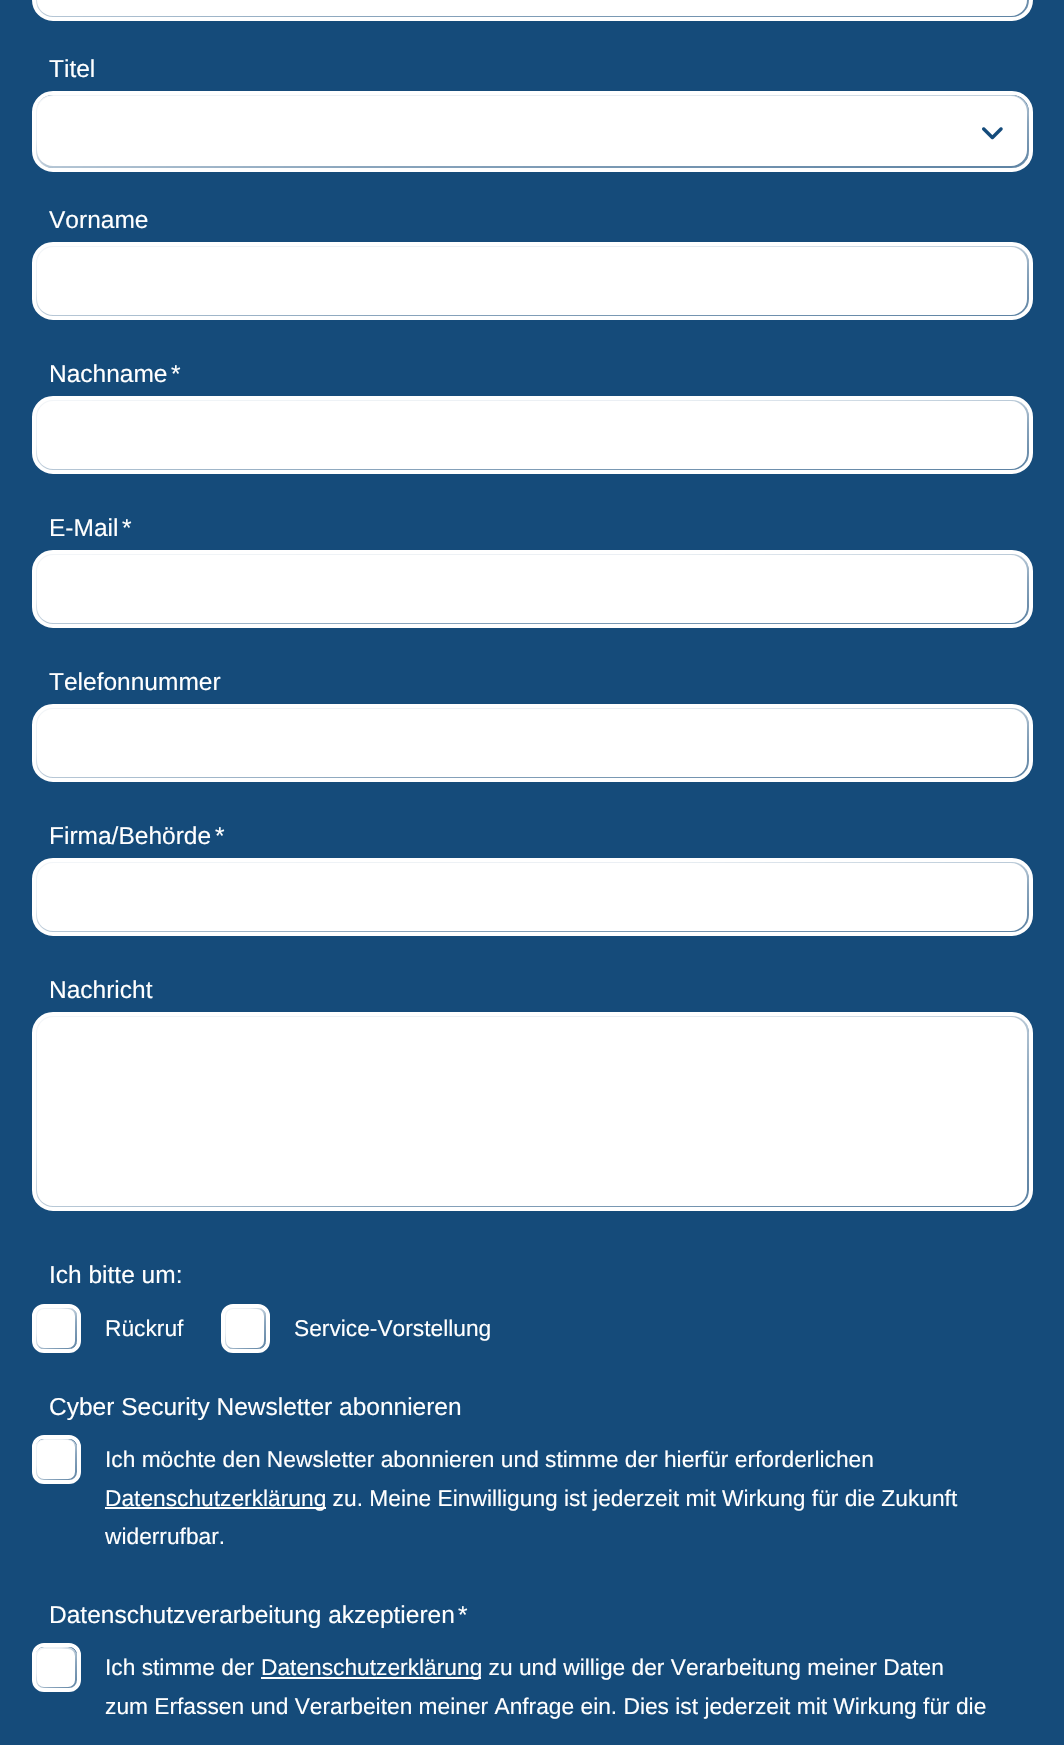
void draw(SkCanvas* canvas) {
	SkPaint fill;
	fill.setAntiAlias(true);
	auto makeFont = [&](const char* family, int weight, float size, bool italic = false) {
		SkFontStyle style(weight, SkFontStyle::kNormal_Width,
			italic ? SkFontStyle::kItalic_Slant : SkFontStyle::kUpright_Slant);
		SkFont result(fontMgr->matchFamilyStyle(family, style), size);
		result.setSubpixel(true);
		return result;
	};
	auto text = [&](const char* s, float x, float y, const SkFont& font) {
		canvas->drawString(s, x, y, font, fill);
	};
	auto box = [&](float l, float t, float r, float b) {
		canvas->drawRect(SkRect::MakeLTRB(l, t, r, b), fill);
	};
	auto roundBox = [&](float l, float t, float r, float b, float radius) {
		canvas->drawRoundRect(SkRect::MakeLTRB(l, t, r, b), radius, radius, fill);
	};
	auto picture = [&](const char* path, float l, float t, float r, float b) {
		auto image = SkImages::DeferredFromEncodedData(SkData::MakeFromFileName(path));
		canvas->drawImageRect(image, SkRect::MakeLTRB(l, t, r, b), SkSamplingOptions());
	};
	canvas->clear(0xFF154B7A);
	fill.setColor(0xFFFFFFFF);
	roundBox(35, -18, 1029, 18, 18);
	{
		const SkColor colors[] = {0x0D154B7A, 0x17154B7A, 0x80154B7A, 0xB3154B7A};
		const float stops[] = {0, 0.33f, 0.67f, 1};
		const SkPoint ends[] = {{527, -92}, {537, 54}};
		fill.setShader(SkGradientShader::MakeLinear(ends, colors, stops, 4, SkTileMode::kClamp));
		fill.setAlpha(255);
	}
	roundBox(35, -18, 1029, 18, 18);
	fill.setShader(nullptr);
	fill.setColor(0xFFFFFFFF);
	roundBox(37, -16, 1027, 16, 16);
	fill.setStyle(SkPaint::kStroke_Style);
	fill.setStrokeWidth(4);
	canvas->drawRoundRect(SkRect::MakeLTRB(34, -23, 1031, 19), 19, 19, fill);
	fill.setStyle(SkPaint::kFill_Style);
	roundBox(35, 95, 1029, 168, 18);
	{
		const SkColor colors[] = {0x0D154B7A, 0x17154B7A, 0x80154B7A, 0xB3154B7A};
		const float stops[] = {0, 0.33f, 0.67f, 1};
		const SkPoint ends[] = {{527, 58}, {537, 204}};
		fill.setShader(SkGradientShader::MakeLinear(ends, colors, stops, 4, SkTileMode::kClamp));
		fill.setAlpha(255);
	}
	roundBox(35, 95, 1029, 168, 18);
	fill.setShader(nullptr);
	fill.setColor(0xFFFFFFFF);
	roundBox(37, 96, 1027, 166, 16);
	fill.setStyle(SkPaint::kStroke_Style);
	canvas->drawRoundRect(SkRect::MakeLTRB(34, 93, 1031, 170), 19, 19, fill);
	picture("image0.png", 982, 127, 1003, 140);
	fill.setStyle(SkPaint::kFill_Style);
	roundBox(35, 245, 1029, 317, 18);
	{
		const SkColor colors[] = {0x0D154B7A, 0x17154B7A, 0x80154B7A, 0xB3154B7A};
		const float stops[] = {0, 0.33f, 0.67f, 1};
		const SkPoint ends[] = {{527, 209}, {537, 352}};
		fill.setShader(SkGradientShader::MakeLinear(ends, colors, stops, 4, SkTileMode::kClamp));
		fill.setAlpha(255);
	}
	roundBox(35, 245, 1029, 317, 18);
	fill.setShader(nullptr);
	fill.setColor(0xFFFFFFFF);
	roundBox(37, 247, 1027, 315, 16);
	fill.setStyle(SkPaint::kStroke_Style);
	canvas->drawRoundRect(SkRect::MakeLTRB(34, 244, 1031, 318), 19, 19, fill);
	fill.setStyle(SkPaint::kFill_Style);
	roundBox(35, 399, 1029, 471, 18);
	{
		const SkColor colors[] = {0x0D154B7A, 0x17154B7A, 0x80154B7A, 0xB3154B7A};
		const float stops[] = {0, 0.33f, 0.67f, 1};
		const SkPoint ends[] = {{527, 363}, {537, 506}};
		fill.setShader(SkGradientShader::MakeLinear(ends, colors, stops, 4, SkTileMode::kClamp));
		fill.setAlpha(255);
	}
	roundBox(35, 399, 1029, 471, 18);
	fill.setShader(nullptr);
	fill.setColor(0xFFFFFFFF);
	roundBox(37, 401, 1027, 469, 16);
	fill.setStyle(SkPaint::kStroke_Style);
	canvas->drawRoundRect(SkRect::MakeLTRB(34, 398, 1031, 472), 19, 19, fill);
	fill.setStyle(SkPaint::kFill_Style);
	roundBox(35, 553, 1029, 625, 18);
	{
		const SkColor colors[] = {0x0D154B7A, 0x17154B7A, 0x80154B7A, 0xB3154B7A};
		const float stops[] = {0, 0.33f, 0.67f, 1};
		const SkPoint ends[] = {{527, 517}, {537, 660}};
		fill.setShader(SkGradientShader::MakeLinear(ends, colors, stops, 4, SkTileMode::kClamp));
		fill.setAlpha(255);
	}
	roundBox(35, 553, 1029, 625, 18);
	fill.setShader(nullptr);
	fill.setColor(0xFFFFFFFF);
	roundBox(37, 555, 1027, 623, 16);
	fill.setStyle(SkPaint::kStroke_Style);
	canvas->drawRoundRect(SkRect::MakeLTRB(34, 552, 1031, 626), 19, 19, fill);
	fill.setStyle(SkPaint::kFill_Style);
	roundBox(35, 707, 1029, 779, 18);
	{
		const SkColor colors[] = {0x0D154B7A, 0x17154B7A, 0x80154B7A, 0xB3154B7A};
		const float stops[] = {0, 0.33f, 0.67f, 1};
		const SkPoint ends[] = {{527, 671}, {537, 814}};
		fill.setShader(SkGradientShader::MakeLinear(ends, colors, stops, 4, SkTileMode::kClamp));
		fill.setAlpha(255);
	}
	roundBox(35, 707, 1029, 779, 18);
	fill.setShader(nullptr);
	fill.setColor(0xFFFFFFFF);
	roundBox(37, 709, 1027, 777, 16);
	fill.setStyle(SkPaint::kStroke_Style);
	canvas->drawRoundRect(SkRect::MakeLTRB(34, 706, 1031, 780), 19, 19, fill);
	fill.setStyle(SkPaint::kFill_Style);
	roundBox(35, 861, 1029, 933, 18);
	{
		const SkColor colors[] = {0x0D154B7A, 0x17154B7A, 0x80154B7A, 0xB3154B7A};
		const float stops[] = {0, 0.33f, 0.67f, 1};
		const SkPoint ends[] = {{527, 825}, {537, 968}};
		fill.setShader(SkGradientShader::MakeLinear(ends, colors, stops, 4, SkTileMode::kClamp));
		fill.setAlpha(255);
	}
	roundBox(35, 861, 1029, 933, 18);
	fill.setShader(nullptr);
	fill.setColor(0xFFFFFFFF);
	roundBox(37, 863, 1027, 931, 16);
	fill.setStyle(SkPaint::kStroke_Style);
	canvas->drawRoundRect(SkRect::MakeLTRB(34, 860, 1031, 934), 19, 19, fill);
	fill.setStyle(SkPaint::kFill_Style);
	roundBox(35, 1015, 1029, 1208, 18);
	{
		const SkColor colors[] = {0x0D154B7A, 0x17154B7A, 0x80154B7A, 0xB3154B7A};
		const float stops[] = {0, 0.33f, 0.67f, 1};
		const SkPoint ends[] = {{496, 926}, {568, 1297}};
		fill.setShader(SkGradientShader::MakeLinear(ends, colors, stops, 4, SkTileMode::kClamp));
		fill.setAlpha(255);
	}
	roundBox(35, 1015, 1029, 1208, 18);
	fill.setShader(nullptr);
	fill.setColor(0xFFFFFFFF);
	roundBox(37, 1017, 1027, 1206, 16);
	fill.setStyle(SkPaint::kStroke_Style);
	canvas->drawRoundRect(SkRect::MakeLTRB(34, 1014, 1031, 1209), 19, 19, fill);
	fill.setStyle(SkPaint::kFill_Style);
	roundBox(35, 1307, 77, 1349, 9);
	{
		const SkColor colors[] = {0x0D154B7A, 0x17154B7A, 0x80154B7A, 0xB3154B7A};
		const float stops[] = {0, 0.33f, 0.67f, 1};
		const SkPoint ends[] = {{35, 1307}, {77, 1349}};
		fill.setShader(SkGradientShader::MakeLinear(ends, colors, stops, 4, SkTileMode::kClamp));
		fill.setAlpha(255);
	}
	roundBox(35, 1307, 77, 1349, 9);
	fill.setShader(nullptr);
	fill.setColor(0xFFFFFFFF);
	roundBox(37, 1309, 75, 1348, 7);
	fill.setStyle(SkPaint::kStroke_Style);
	canvas->drawRoundRect(SkRect::MakeLTRB(34, 1306, 79, 1351), 10, 10, fill);
	fill.setStyle(SkPaint::kFill_Style);
	roundBox(224, 1307, 266, 1349, 9);
	{
		const SkColor colors[] = {0x0D154B7A, 0x17154B7A, 0x80154B7A, 0xB3154B7A};
		const float stops[] = {0, 0.33f, 0.67f, 1};
		const SkPoint ends[] = {{224, 1307}, {266, 1349}};
		fill.setShader(SkGradientShader::MakeLinear(ends, colors, stops, 4, SkTileMode::kClamp));
		fill.setAlpha(255);
	}
	roundBox(224, 1307, 266, 1349, 9);
	fill.setShader(nullptr);
	fill.setColor(0xFFFFFFFF);
	roundBox(226, 1309, 264, 1348, 7);
	fill.setStyle(SkPaint::kStroke_Style);
	canvas->drawRoundRect(SkRect::MakeLTRB(223, 1306, 268, 1351), 10, 10, fill);
	fill.setStyle(SkPaint::kFill_Style);
	roundBox(35, 1439, 77, 1481, 9);
	{
		const SkColor colors[] = {0x0D154B7A, 0x17154B7A, 0x80154B7A, 0xB3154B7A};
		const float stops[] = {0, 0.33f, 0.67f, 1};
		const SkPoint ends[] = {{35, 1439}, {77, 1481}};
		fill.setShader(SkGradientShader::MakeLinear(ends, colors, stops, 4, SkTileMode::kClamp));
		fill.setAlpha(255);
	}
	roundBox(35, 1439, 77, 1481, 9);
	fill.setShader(nullptr);
	fill.setColor(0xFFFFFFFF);
	roundBox(37, 1440, 75, 1479, 7);
	fill.setStyle(SkPaint::kStroke_Style);
	canvas->drawRoundRect(SkRect::MakeLTRB(34, 1437, 79, 1482), 10, 10, fill);
	fill.setStyle(SkPaint::kFill_Style);
	box(105, 1507, 326, 1509);
	roundBox(35, 1647, 77, 1689, 9);
	{
		const SkColor colors[] = {0x0D154B7A, 0x17154B7A, 0x80154B7A, 0xB3154B7A};
		const float stops[] = {0, 0.33f, 0.67f, 1};
		const SkPoint ends[] = {{35, 1647}, {77, 1689}};
		fill.setShader(SkGradientShader::MakeLinear(ends, colors, stops, 4, SkTileMode::kClamp));
		fill.setAlpha(255);
	}
	roundBox(35, 1647, 77, 1689, 9);
	fill.setShader(nullptr);
	fill.setColor(0xFFFFFFFF);
	roundBox(37, 1649, 75, 1687, 7);
	fill.setStyle(SkPaint::kStroke_Style);
	canvas->drawRoundRect(SkRect::MakeLTRB(34, 1645, 79, 1690), 10, 10, fill);
	fill.setStyle(SkPaint::kFill_Style);
	box(261, 1677, 481, 1679);
	auto font1 = makeFont("Liberation Sans", 400, 24.5f);
	text("Titel", 49, 77, font1);
	text("Vorname", 49, 228, font1);
	text("Nachname", 49, 382, font1);
	text("*", 171, 382, font1);
	text("E-Mail", 49, 536, font1);
	text("*", 122, 536, font1);
	text("Telefonnummer", 49, 690, font1);
	text("Firma/Behörde", 49, 844, font1);
	text("*", 215, 844, font1);
	text("Nachricht", 49, 998, font1);
	text("Ich bitte um:", 49, 1283, font1);
	auto font2 = makeFont("Liberation Sans", 400, 22.75f);
	text("Rückruf", 105, 1336, font2);
	text("Service-Vorstellung", 294, 1336, font2);
	text("Cyber Security Newsletter abonnieren", 49, 1415, font1);
	text("Ich möchte den Newsletter abonnieren und stimme der hierfür erforderlichen", 105, 1467, font2);
	text("Datenschutzerklärung zu. Meine Einwilligung ist jederzeit mit Wirkung für die Zukunft", 105, 1506, font2);
	text("widerrufbar.", 105, 1544, font2);
	text("Datenschutzverarbeitung akzeptieren", 49, 1623, font1);
	text("*", 458, 1623, font1);
	text("Ich stimme der", 105, 1675, font2);
	text("Datenschutzerklärung zu und willige der Verarbeitung meiner Daten", 261, 1675, font2);
	text("zum Erfassen und Verarbeiten meiner Anfrage ein. Dies ist jederzeit mit Wirkung für die", 105, 1714, font2);
}
